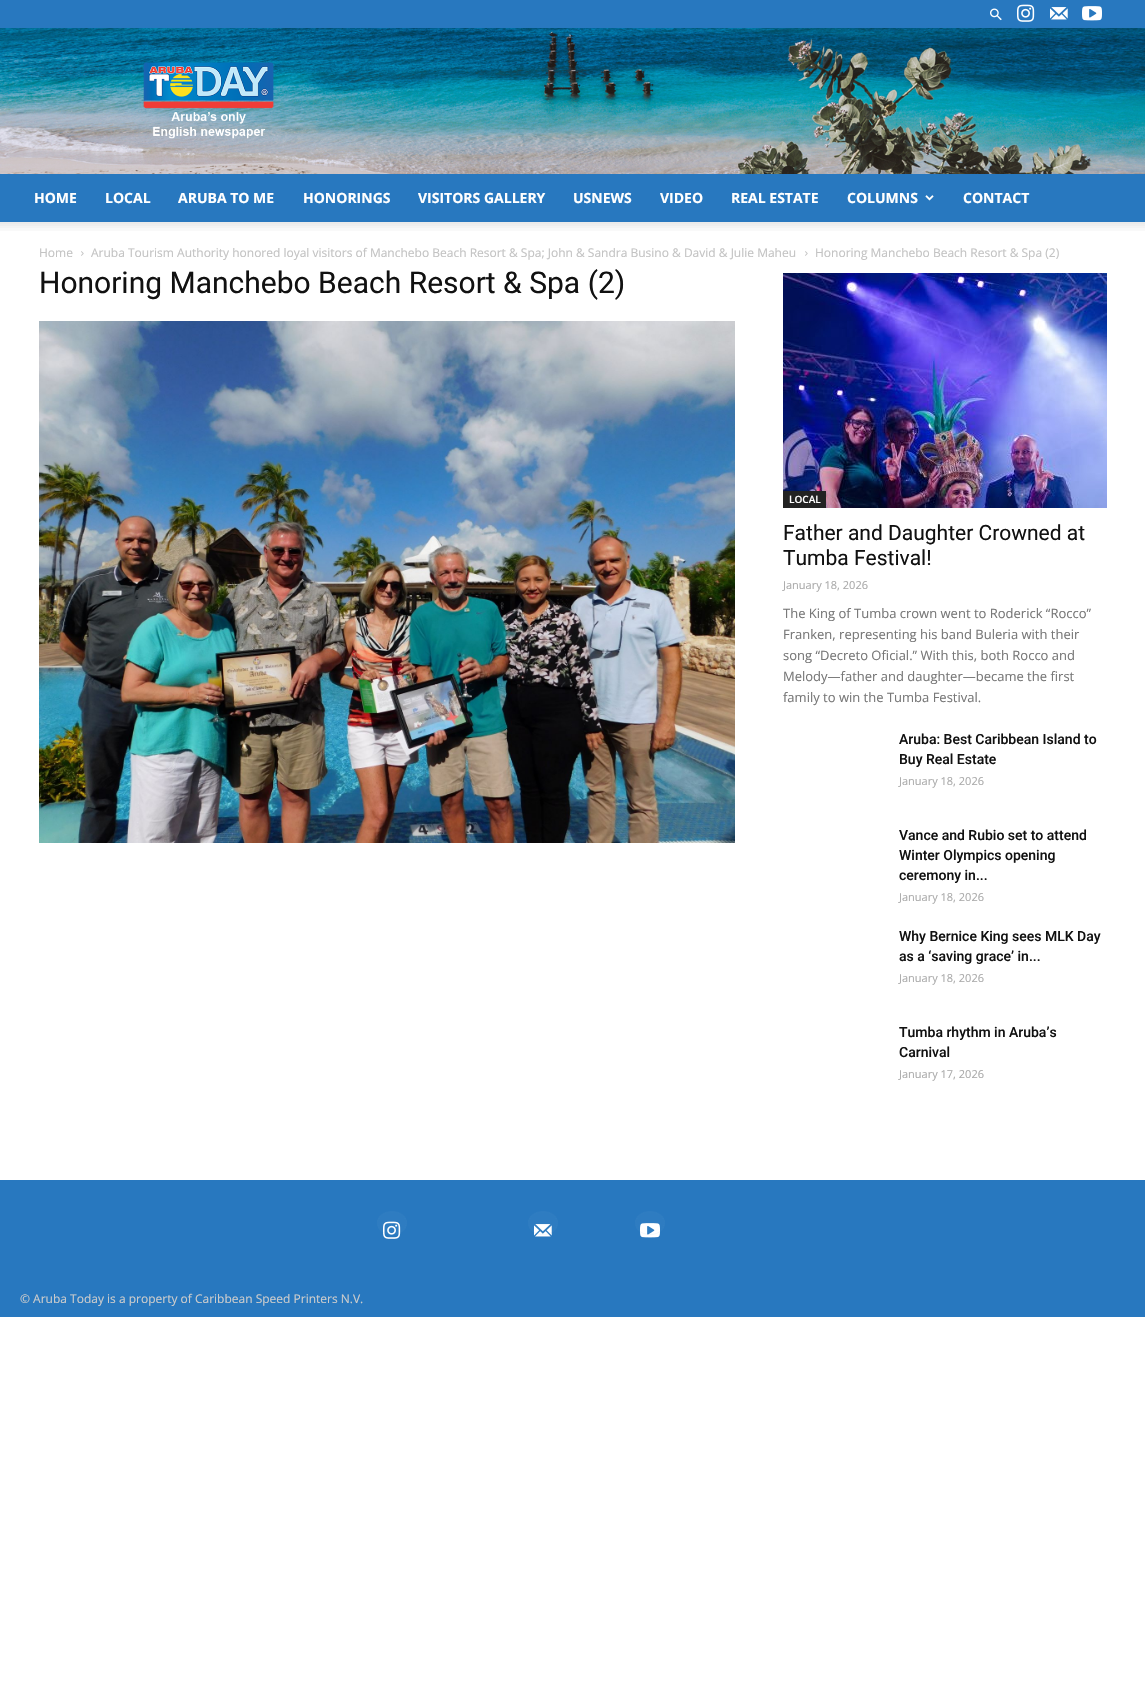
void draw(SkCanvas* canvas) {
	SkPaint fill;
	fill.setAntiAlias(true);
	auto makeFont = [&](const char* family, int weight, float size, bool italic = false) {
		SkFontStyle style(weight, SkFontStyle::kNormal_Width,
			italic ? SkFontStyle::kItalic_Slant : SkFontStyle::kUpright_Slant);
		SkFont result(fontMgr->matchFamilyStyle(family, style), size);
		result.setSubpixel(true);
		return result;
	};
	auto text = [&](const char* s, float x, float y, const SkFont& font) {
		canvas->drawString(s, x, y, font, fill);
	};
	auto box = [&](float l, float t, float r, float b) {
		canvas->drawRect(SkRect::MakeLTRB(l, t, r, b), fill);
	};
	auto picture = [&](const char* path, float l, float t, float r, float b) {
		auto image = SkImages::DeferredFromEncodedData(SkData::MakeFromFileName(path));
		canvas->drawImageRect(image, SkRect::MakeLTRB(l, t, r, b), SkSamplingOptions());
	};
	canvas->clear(0xFFFFFFFF);
	fill.setColor(0xFF2878BF);
	box(0, 0, 1145, 28);
	picture("image0.png", 990, 8, 1002, 21);
	picture("image1.png", 1017, 4, 1035, 22);
	picture("image2.png", 1050, 7, 1068, 20);
	picture("image3.png", 1082, 6, 1102, 21);
	picture("image4.png", 0, 28, 1145, 174);
	picture("image5.png", 143, 62, 274, 139);
	box(0, 174, 1145, 222);
	picture("image6.png", 925, 195, 934, 201);
	picture("image7.png", 0, 222, 1145, 231);
	picture("image8.png", 81, 251, 84, 256);
	picture("image8.png", 805, 251, 808, 256);
	picture("image9.png", 39, 321, 735, 843);
	picture("image10.png", 783, 273, 1107, 508);
	fill.setColor(0xFF222222);
	box(783, 491, 826, 508);
	fill.setColor(0xFF2878BF);
	box(0, 1180, 1145, 1317);
	fill.setColor(0xFF2E7CC1);
	canvas->drawOval(SkRect::MakeLTRB(377, 1211, 407, 1235), fill);
	picture("image11.png", 383, 1221, 401, 1239);
	fill.setStyle(SkPaint::kStroke_Style);
	fill.setStrokeWidth(1);
	fill.setColor(0x0D2878BF);
	canvas->drawPath(SkPathBuilder().moveTo(392, 1211.5f).cubicTo(411, 1211.5f, 411, 1234.5f, 392, 1234.5f).cubicTo(373, 1234.5f, 373, 1211.5f, 392, 1211.5f).close().detach(), fill);
	fill.setStyle(SkPaint::kFill_Style);
	fill.setColor(0xFF2E7CC1);
	canvas->drawOval(SkRect::MakeLTRB(528, 1211, 558, 1235), fill);
	picture("image12.png", 534, 1224, 552, 1237);
	fill.setStyle(SkPaint::kStroke_Style);
	fill.setColor(0x0D2878BF);
	canvas->drawPath(SkPathBuilder().moveTo(543, 1211.5f).cubicTo(562, 1211.5f, 562, 1234.5f, 543, 1234.5f).cubicTo(524, 1234.5f, 524, 1211.5f, 543, 1211.5f).close().detach(), fill);
	fill.setStyle(SkPaint::kFill_Style);
	fill.setColor(0xFF2E7CC1);
	canvas->drawOval(SkRect::MakeLTRB(635, 1211, 665, 1235), fill);
	picture("image13.png", 640, 1223, 660, 1238);
	fill.setStyle(SkPaint::kStroke_Style);
	fill.setColor(0x0D2878BF);
	canvas->drawPath(SkPathBuilder().moveTo(650, 1211.5f).cubicTo(669, 1211.5f, 669, 1234.5f, 650, 1234.5f).cubicTo(631, 1234.5f, 631, 1211.5f, 650, 1211.5f).close().detach(), fill);
	auto font1 = makeFont("Open Sans", 700, 14);
	fill.setStyle(SkPaint::kFill_Style);
	fill.setColor(0xFFFFFFFF);
	text("HOME", 34, 203, font1);
	text("LOCAL", 105, 203, font1);
	text("ARUBA TO ME", 178, 203, font1);
	text("HONORINGS", 303, 203, font1);
	text("VISITORS GALLERY", 418, 203, font1);
	text("USNEWS", 573, 203, font1);
	text("VIDEO", 660, 203, font1);
	text("REAL ESTATE", 731, 203, font1);
	text("COLUMNS", 847, 203, font1);
	text("CONTACT", 963, 203, font1);
	auto font2 = makeFont("Open Sans", 400, 12);
	fill.setColor(0xFFC3C3C3);
	text("Home", 39, 257, font2);
	text("Aruba Tourism Authority honored loyal visitors of Manchebo Beach Resort & Spa; John & Sandra Busino & David & Julie Maheu", 91, 257, font2);
	text("Honoring Manchebo Beach Resort & Spa (2)", 815, 257, font2);
	auto font3 = makeFont("Roboto", 400, 30);
	fill.setColor(0xFF111111);
	text("Honoring Manchebo Beach Resort & Spa (2)", 39, 293, font3);
	auto font4 = makeFont("Open Sans", 600, 10);
	fill.setColor(0xFFFFFFFF);
	text("LOCAL", 789, 503, font4);
	auto font5 = makeFont("Roboto", 400, 21);
	fill.setColor(0xFF111111);
	text("Father and Daughter Crowned at", 783, 540, font5);
	text("Tumba Festival!", 783, 565, font5);
	auto font6 = makeFont("Open Sans", 400, 11);
	fill.setColor(0xFFAAAAAA);
	text("January 18, 2026", 783, 589, font6);
	auto font7 = makeFont("Open Sans", 400, 13);
	fill.setColor(0xFF777777);
	text("The King of Tumba crown went to Roderick “Rocco”", 783, 618, font7);
	text("Franken, representing his band Buleria with their", 783, 639, font7);
	text("song “Decreto Oficial.” With this, both Rocco and", 783, 660, font7);
	text("Melody—father and daughter—became the first", 783, 681, font7);
	text("family to win the Tumba Festival.", 783, 702, font7);
	auto font8 = makeFont("Roboto", 500, 14);
	fill.setColor(0xFF111111);
	text("Aruba: Best Caribbean Island to", 899, 744, font8);
	text("Buy Real Estate", 899, 764, font8);
	fill.setColor(0xFFAAAAAA);
	text("January 18, 2026", 899, 785, font6);
	fill.setColor(0xFF111111);
	text("Vance and Rubio set to attend", 899, 840, font8);
	text("Winter Olympics opening", 899, 860, font8);
	text("ceremony in...", 899, 880, font8);
	fill.setColor(0xFFAAAAAA);
	text("January 18, 2026", 899, 901, font6);
	fill.setColor(0xFF111111);
	text("Why Bernice King sees MLK Day", 899, 941, font8);
	text("as a ‘saving grace’ in...", 899, 961, font8);
	fill.setColor(0xFFAAAAAA);
	text("January 18, 2026", 899, 982, font6);
	fill.setColor(0xFF111111);
	text("Tumba rhythm in Aruba’s", 899, 1037, font8);
	text("Carnival", 899, 1057, font8);
	fill.setColor(0xFFAAAAAA);
	text("January 17, 2026", 899, 1078, font6);
	fill.setColor(0xFFCCCCCC);
	text("© Aruba Today is a property of Caribbean Speed Printers N.V.", 20, 1303, font2);
}
